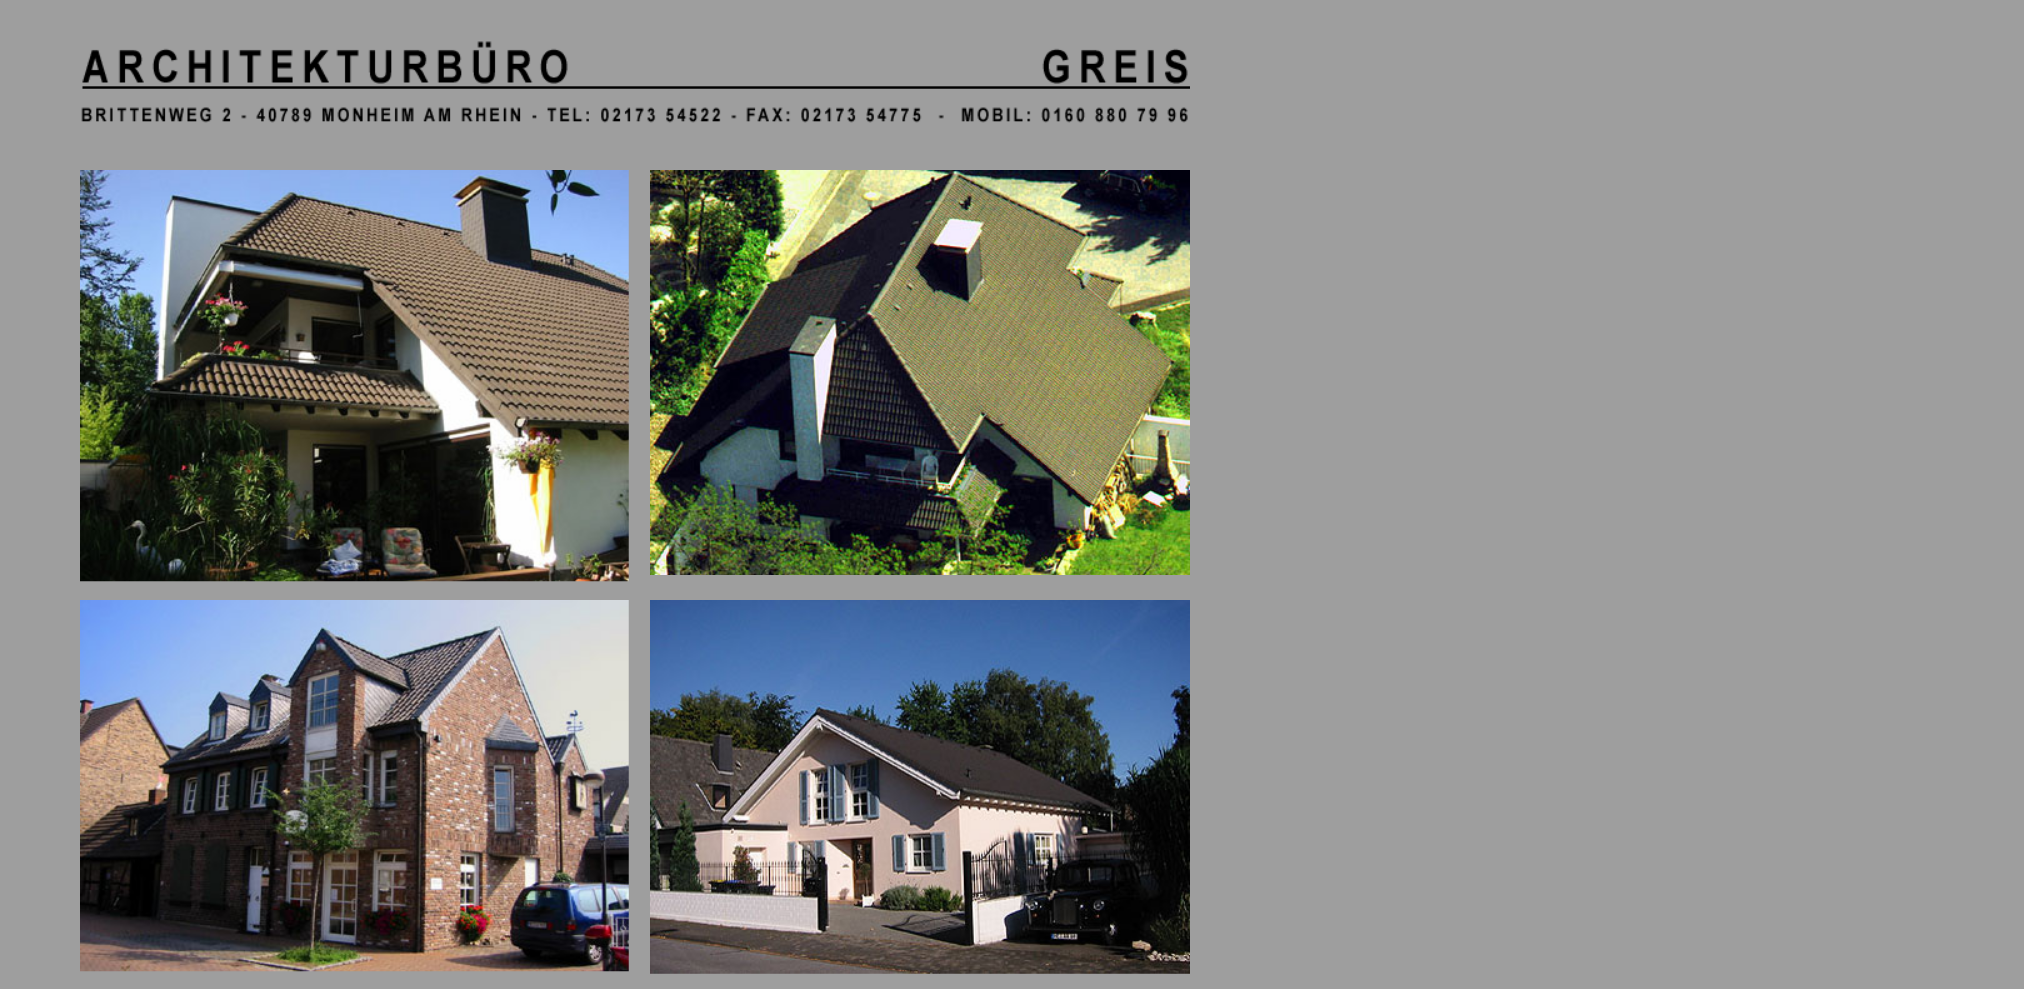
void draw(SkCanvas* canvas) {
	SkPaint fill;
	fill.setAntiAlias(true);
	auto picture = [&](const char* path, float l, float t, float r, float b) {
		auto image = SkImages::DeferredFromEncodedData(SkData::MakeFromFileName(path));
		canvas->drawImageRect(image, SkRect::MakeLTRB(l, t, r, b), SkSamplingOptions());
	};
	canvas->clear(0xFF9E9E9E);
	picture("image0.png", 81, 41, 1190, 123);
	picture("image1.png", 80, 170, 629, 582);
	picture("image2.png", 650, 170, 1190, 575);
	picture("image3.png", 80, 600, 629, 972);
	picture("image4.png", 650, 600, 1190, 974);
}
